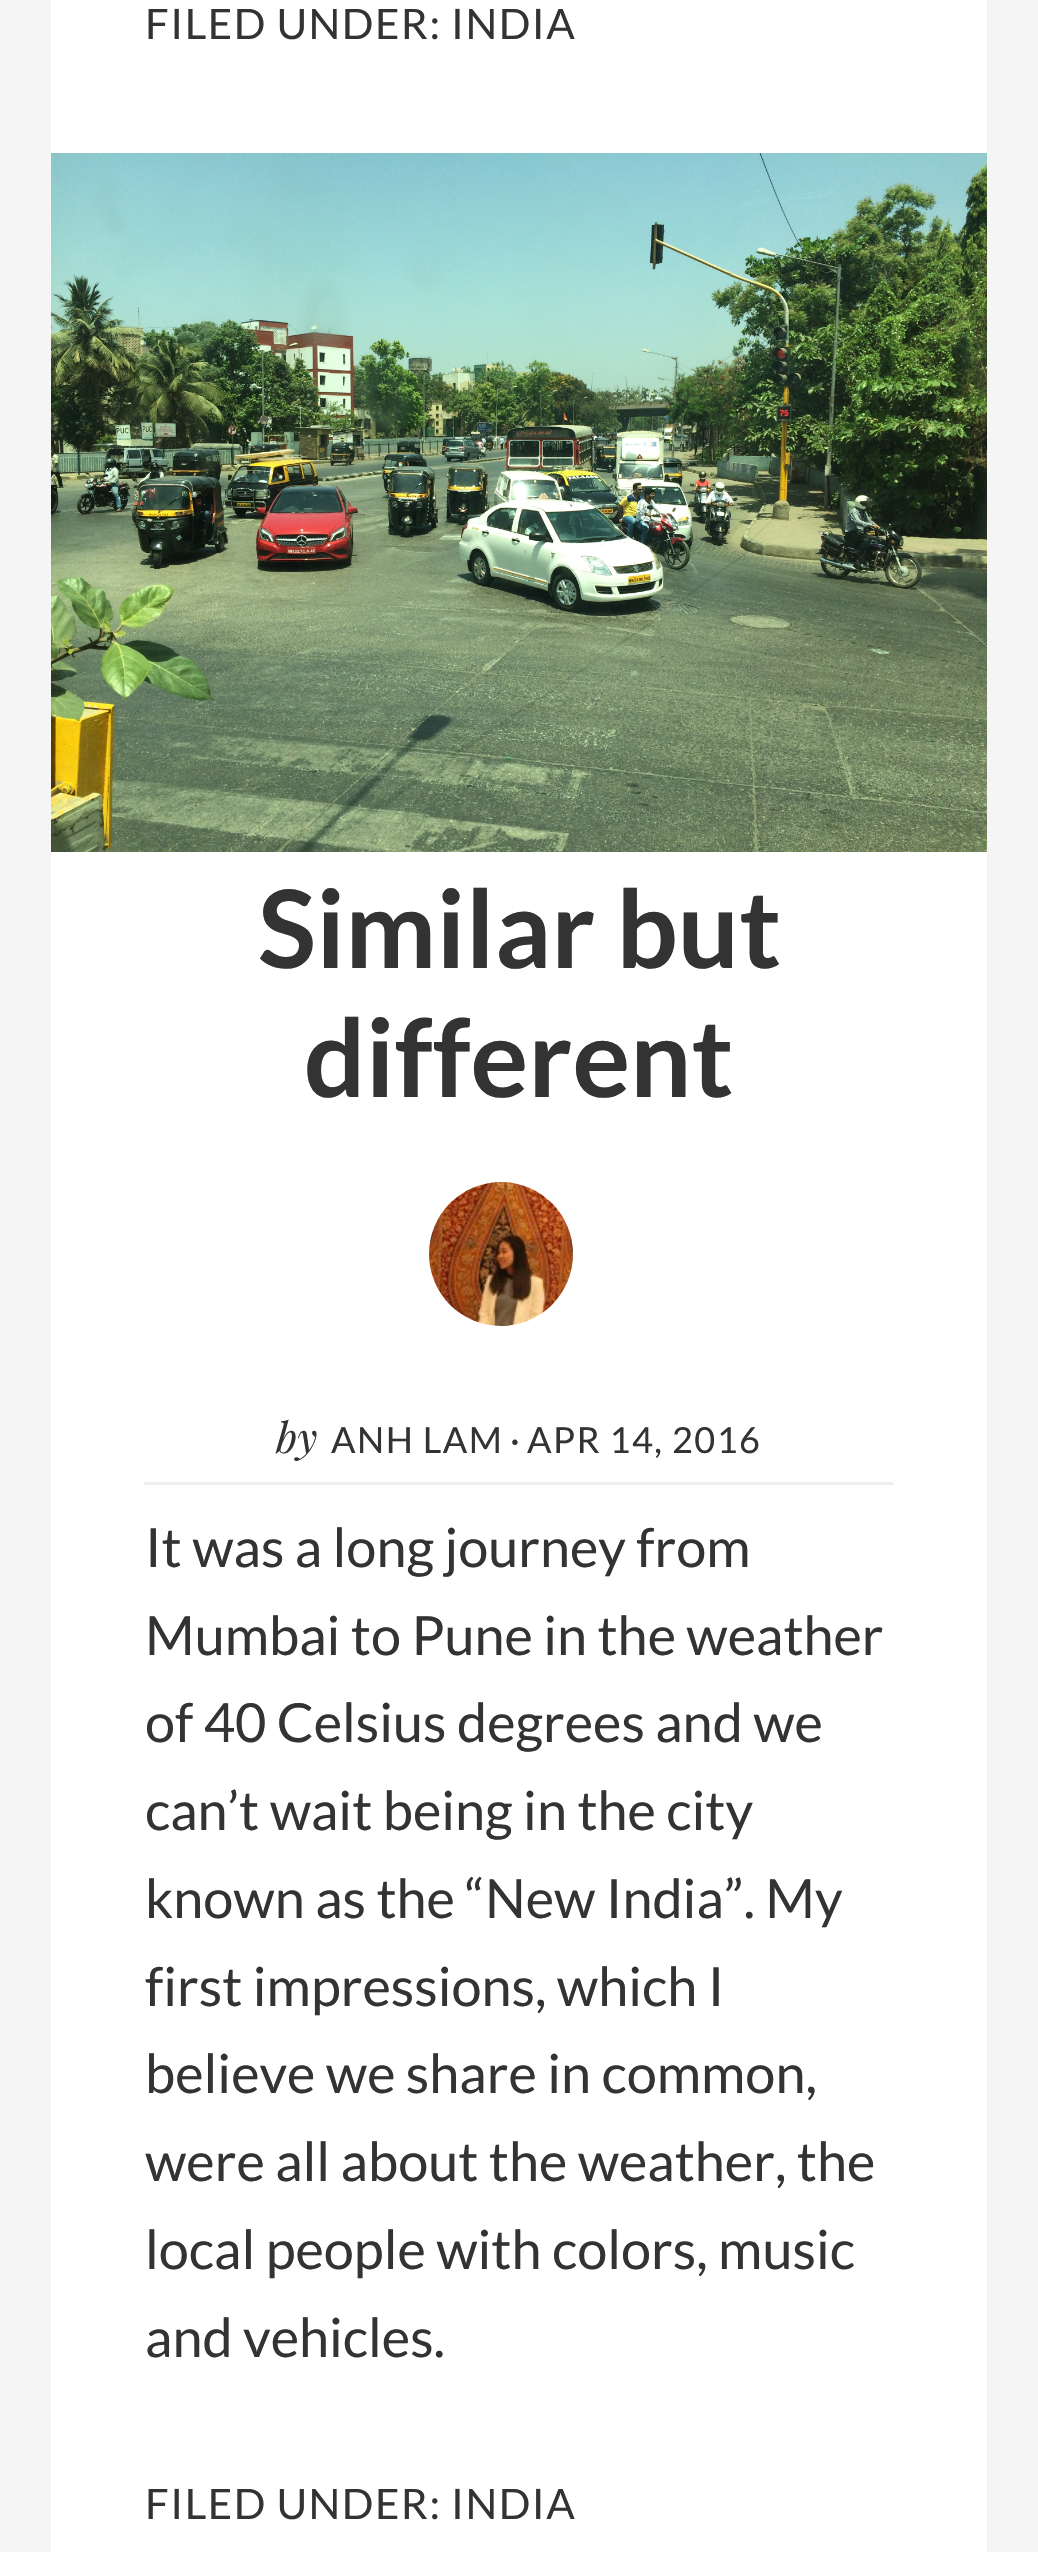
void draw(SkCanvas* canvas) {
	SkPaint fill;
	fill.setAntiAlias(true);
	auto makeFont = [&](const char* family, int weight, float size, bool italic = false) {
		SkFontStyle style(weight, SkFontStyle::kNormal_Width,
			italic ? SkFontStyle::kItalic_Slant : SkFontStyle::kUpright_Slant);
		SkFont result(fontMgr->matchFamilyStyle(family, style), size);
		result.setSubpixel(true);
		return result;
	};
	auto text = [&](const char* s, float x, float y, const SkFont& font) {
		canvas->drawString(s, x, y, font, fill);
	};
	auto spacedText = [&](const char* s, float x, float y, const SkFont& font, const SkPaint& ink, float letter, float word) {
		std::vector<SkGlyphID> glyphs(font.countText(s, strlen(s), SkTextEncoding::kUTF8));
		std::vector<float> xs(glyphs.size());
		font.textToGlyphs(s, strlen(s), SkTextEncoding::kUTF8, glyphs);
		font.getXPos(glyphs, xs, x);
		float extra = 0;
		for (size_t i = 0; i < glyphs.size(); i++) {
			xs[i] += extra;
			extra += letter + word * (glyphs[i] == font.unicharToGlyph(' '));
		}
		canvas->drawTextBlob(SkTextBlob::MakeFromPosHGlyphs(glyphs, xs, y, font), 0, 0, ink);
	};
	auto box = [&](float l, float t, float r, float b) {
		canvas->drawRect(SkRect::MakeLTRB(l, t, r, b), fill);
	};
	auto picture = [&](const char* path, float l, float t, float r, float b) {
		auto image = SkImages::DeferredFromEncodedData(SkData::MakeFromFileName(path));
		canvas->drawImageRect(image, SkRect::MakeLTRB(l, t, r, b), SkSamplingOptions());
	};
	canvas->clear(0xFFF5F5F5);
	fill.setColor(0xFFFFFFFF);
	box(51, 0, 987, 2552);
	picture("image0.png", 51, 153, 987, 852);
	fill.setColor(0xFFEEEEEE);
	box(144, 1482, 894, 1485);
	picture("image1.png", 429, 1182, 573, 1326);
	auto font1 = makeFont("Lato", 400, 42);
	fill.setColor(0xFF333333);
	spacedText("FILED UNDER: INDIA", 145, 39, font1, fill, 1.5f, 0);
	auto font2 = makeFont("Lato", 700, 108);
	text("Similar but", 258, 968, font2);
	text("different", 304, 1097, font2);
	auto font3 = makeFont("Playfair Display", 400, 42, true);
	text("by", 276, 1453, font3);
	auto font4 = makeFont("Lato", 400, 36);
	spacedText("ANH LAM", 331, 1453, font4, fill, 1.5f, 0);
	text("·", 510, 1453, font4);
	spacedText("APR 14, 2016", 527, 1453, font4, fill, 1.5f, 0);
	auto font5 = makeFont("Lato", 400, 54);
	text("It was a long journey from", 145, 1567, font5);
	text("Mumbai to Pune in the weather", 145, 1655, font5);
	text("of 40 Celsius degrees and we", 145, 1742, font5);
	text("can’t wait being in the city", 145, 1830, font5);
	text("known as the “New India”. My", 145, 1918, font5);
	text("first impressions, which I", 145, 2006, font5);
	text("believe we share in common,", 145, 2093, font5);
	text("were all about the weather, the", 145, 2181, font5);
	text("local people with colors, music", 145, 2269, font5);
	text("and vehicles.", 145, 2357, font5);
	spacedText("FILED UNDER: INDIA", 145, 2519, font1, fill, 1.5f, 0);
}
